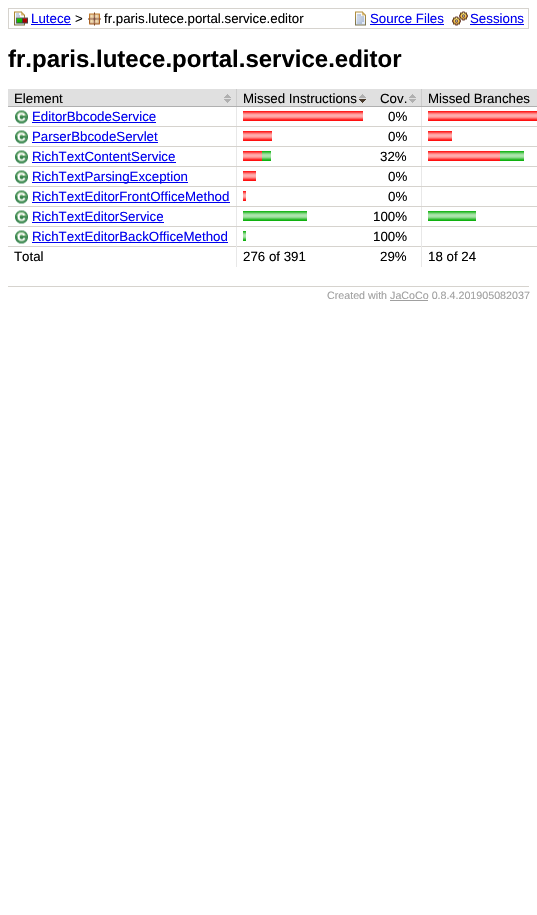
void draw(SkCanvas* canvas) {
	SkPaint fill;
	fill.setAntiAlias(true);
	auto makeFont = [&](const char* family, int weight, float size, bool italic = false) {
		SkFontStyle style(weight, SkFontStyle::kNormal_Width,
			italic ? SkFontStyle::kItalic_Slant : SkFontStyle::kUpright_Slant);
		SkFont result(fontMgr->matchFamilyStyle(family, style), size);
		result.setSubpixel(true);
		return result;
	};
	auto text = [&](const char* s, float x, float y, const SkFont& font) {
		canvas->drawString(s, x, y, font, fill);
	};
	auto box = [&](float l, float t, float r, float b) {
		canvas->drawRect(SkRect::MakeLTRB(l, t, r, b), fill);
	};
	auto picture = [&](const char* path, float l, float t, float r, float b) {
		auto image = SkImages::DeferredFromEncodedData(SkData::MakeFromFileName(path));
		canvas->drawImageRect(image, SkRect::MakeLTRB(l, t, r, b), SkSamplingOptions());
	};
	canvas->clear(0xFFFFFFFF);
	fill.setStyle(SkPaint::kStroke_Style);
	fill.setStrokeWidth(1);
	fill.setColor(0xFFD6D3CE);
	canvas->drawRect(SkRect::MakeLTRB(8.5f, 8.5f, 528.5f, 28.5f), fill);
	picture("image0.png", 14, 11, 28, 26);
	fill.setStyle(SkPaint::kFill_Style);
	fill.setColor(0xFF0000EE);
	box(31, 24, 71, 25);
	picture("image1.png", 88, 12, 101, 26);
	picture("image2.png", 355, 11, 366, 26);
	box(370, 24, 444, 25);
	picture("image3.png", 452, 11, 468, 26);
	box(470, 24, 524, 25);
	fill.setColor(0xFFE0E0E0);
	box(8, 89, 537, 106);
	picture("image4.png", 224, 94, 231, 103);
	fill.setColor(0xFFD6D3CE);
	box(421, 246, 537, 247);
	fill.setColor(0xFFE8E8E8);
	box(421, 226, 422, 247);
	fill.setColor(0xFFD6D3CE);
	box(421, 226, 537, 227);
	fill.setColor(0xFFE8E8E8);
	box(421, 206, 422, 227);
	fill.setColor(0xFFD6D3CE);
	box(421, 206, 537, 207);
	fill.setColor(0xFFE8E8E8);
	box(421, 186, 422, 207);
	fill.setColor(0xFFD6D3CE);
	box(421, 186, 537, 187);
	fill.setColor(0xFFE8E8E8);
	box(421, 166, 422, 187);
	fill.setColor(0xFFD6D3CE);
	box(421, 166, 537, 167);
	fill.setColor(0xFFE8E8E8);
	box(421, 146, 422, 167);
	fill.setColor(0xFFD6D3CE);
	box(421, 146, 537, 147);
	fill.setColor(0xFFE8E8E8);
	box(421, 126, 422, 147);
	fill.setColor(0xFFD6D3CE);
	box(421, 126, 537, 127);
	fill.setColor(0xFFE8E8E8);
	box(421, 106, 422, 127);
	fill.setColor(0xFFB0B0B0);
	box(421, 106, 537, 107);
	fill.setColor(0xFFCCCCCC);
	box(421, 89, 422, 107);
	fill.setColor(0xFFD6D3CE);
	box(236, 246, 422, 247);
	fill.setColor(0xFFE8E8E8);
	box(236, 226, 237, 247);
	fill.setColor(0xFFD6D3CE);
	box(236, 226, 422, 227);
	fill.setColor(0xFFE8E8E8);
	box(236, 206, 237, 227);
	fill.setColor(0xFFD6D3CE);
	box(236, 206, 422, 207);
	fill.setColor(0xFFE8E8E8);
	box(236, 186, 237, 207);
	fill.setColor(0xFFD6D3CE);
	box(236, 186, 422, 187);
	fill.setColor(0xFFE8E8E8);
	box(236, 166, 237, 187);
	fill.setColor(0xFFD6D3CE);
	box(236, 166, 422, 167);
	fill.setColor(0xFFE8E8E8);
	box(236, 146, 237, 167);
	fill.setColor(0xFFD6D3CE);
	box(236, 146, 422, 147);
	fill.setColor(0xFFE8E8E8);
	box(236, 126, 237, 147);
	fill.setColor(0xFFD6D3CE);
	box(236, 126, 422, 127);
	fill.setColor(0xFFE8E8E8);
	box(236, 106, 237, 127);
	fill.setColor(0xFFB0B0B0);
	box(236, 106, 422, 107);
	fill.setColor(0xFFCCCCCC);
	box(236, 89, 237, 107);
	fill.setColor(0xFFB0B0B0);
	box(8, 106, 237, 107);
	picture("image5.png", 359, 94, 366, 103);
	picture("image4.png", 409, 94, 416, 103);
	fill.setColor(0xFFD6D3CE);
	box(8, 126, 237, 127);
	picture("image6.png", 15, 110, 28, 124);
	fill.setColor(0xFF0000EE);
	box(32, 122, 156, 123);
	picture("image7.png", 243, 111, 363, 121);
	picture("image8.png", 428, 111, 537, 121);
	fill.setColor(0xFFD6D3CE);
	box(8, 146, 237, 147);
	picture("image6.png", 15, 130, 28, 144);
	fill.setColor(0xFF0000EE);
	box(32, 142, 158, 143);
	picture("image9.png", 243, 131, 272, 141);
	picture("image10.png", 428, 131, 452, 141);
	fill.setColor(0xFFD6D3CE);
	box(8, 166, 237, 167);
	picture("image6.png", 15, 150, 28, 164);
	fill.setColor(0xFF0000EE);
	box(32, 162, 176, 163);
	picture("image11.png", 243, 151, 262, 161);
	picture("image12.png", 262, 151, 271, 161);
	picture("image13.png", 428, 151, 500, 161);
	picture("image14.png", 500, 151, 524, 161);
	fill.setColor(0xFFD6D3CE);
	box(8, 186, 237, 187);
	picture("image6.png", 15, 170, 28, 184);
	fill.setColor(0xFF0000EE);
	box(32, 182, 188, 183);
	picture("image15.png", 243, 171, 256, 181);
	fill.setColor(0xFFD6D3CE);
	box(8, 206, 237, 207);
	picture("image6.png", 15, 190, 28, 204);
	fill.setColor(0xFF0000EE);
	box(32, 202, 230, 203);
	picture("image16.png", 243, 191, 246, 201);
	fill.setColor(0xFFD6D3CE);
	box(8, 226, 237, 227);
	picture("image6.png", 15, 210, 28, 224);
	fill.setColor(0xFF0000EE);
	box(32, 222, 164, 223);
	picture("image17.png", 243, 211, 307, 221);
	picture("image18.png", 428, 211, 476, 221);
	fill.setColor(0xFFD6D3CE);
	box(8, 246, 237, 247);
	picture("image6.png", 15, 230, 28, 244);
	fill.setColor(0xFF0000EE);
	box(32, 242, 228, 243);
	picture("image19.png", 243, 231, 246, 241);
	fill.setColor(0xFFE8E8E8);
	box(236, 246, 237, 267);
	box(421, 246, 422, 267);
	fill.setColor(0xFFD6D3CE);
	box(8, 286, 529, 287);
	fill.setColor(0xFFA0A0A0);
	box(390, 300, 428, 301);
	auto font1 = makeFont("Liberation Sans", 400, 13.3f);
	fill.setColor(0xFF0000EE);
	text("Lutece", 31, 23, font1);
	fill.setColor(0xFF000000);
	text(">", 75, 23, font1);
	text("fr.paris.lutece.portal.service.editor", 104, 23, font1);
	fill.setColor(0xFF0000EE);
	text("Source Files", 370, 23, font1);
	text("Sessions", 470, 23, font1);
	auto font2 = makeFont("Liberation Sans", 700, 24);
	fill.setColor(0xFF000000);
	text("fr.paris.lutece.portal.service.editor", 8, 67, font2);
	text("Element", 14, 103, font1);
	text("Missed Instructions", 243, 103, font1);
	text("Cov.", 380, 103, font1);
	text("Missed Branches", 428, 103, font1);
	fill.setColor(0xFF0000EE);
	text("EditorBbcodeService", 32, 121, font1);
	fill.setColor(0xFF000000);
	text("0%", 388, 121, font1);
	fill.setColor(0xFF0000EE);
	text("ParserBbcodeServlet", 32, 141, font1);
	fill.setColor(0xFF000000);
	text("0%", 388, 141, font1);
	fill.setColor(0xFF0000EE);
	text("RichTextContentService", 32, 161, font1);
	fill.setColor(0xFF000000);
	text("32%", 380, 161, font1);
	fill.setColor(0xFF0000EE);
	text("RichTextParsingException", 32, 181, font1);
	fill.setColor(0xFF000000);
	text("0%", 388, 181, font1);
	fill.setColor(0xFF0000EE);
	text("RichTextEditorFrontOfficeMethod", 32, 201, font1);
	fill.setColor(0xFF000000);
	text("0%", 388, 201, font1);
	fill.setColor(0xFF0000EE);
	text("RichTextEditorService", 32, 221, font1);
	fill.setColor(0xFF000000);
	text("100%", 373, 221, font1);
	fill.setColor(0xFF0000EE);
	text("RichTextEditorBackOfficeMethod", 32, 241, font1);
	fill.setColor(0xFF000000);
	text("100%", 373, 241, font1);
	text("Total", 14, 261, font1);
	text("276 of 391", 243, 261, font1);
	text("29%", 380, 261, font1);
	text("18 of 24", 428, 261, font1);
	auto font3 = makeFont("Liberation Sans", 400, 10.7f);
	fill.setColor(0xFFA0A0A0);
	text("Created with JaCoCo 0.8.4.201905082037", 327, 299, font3);
}
